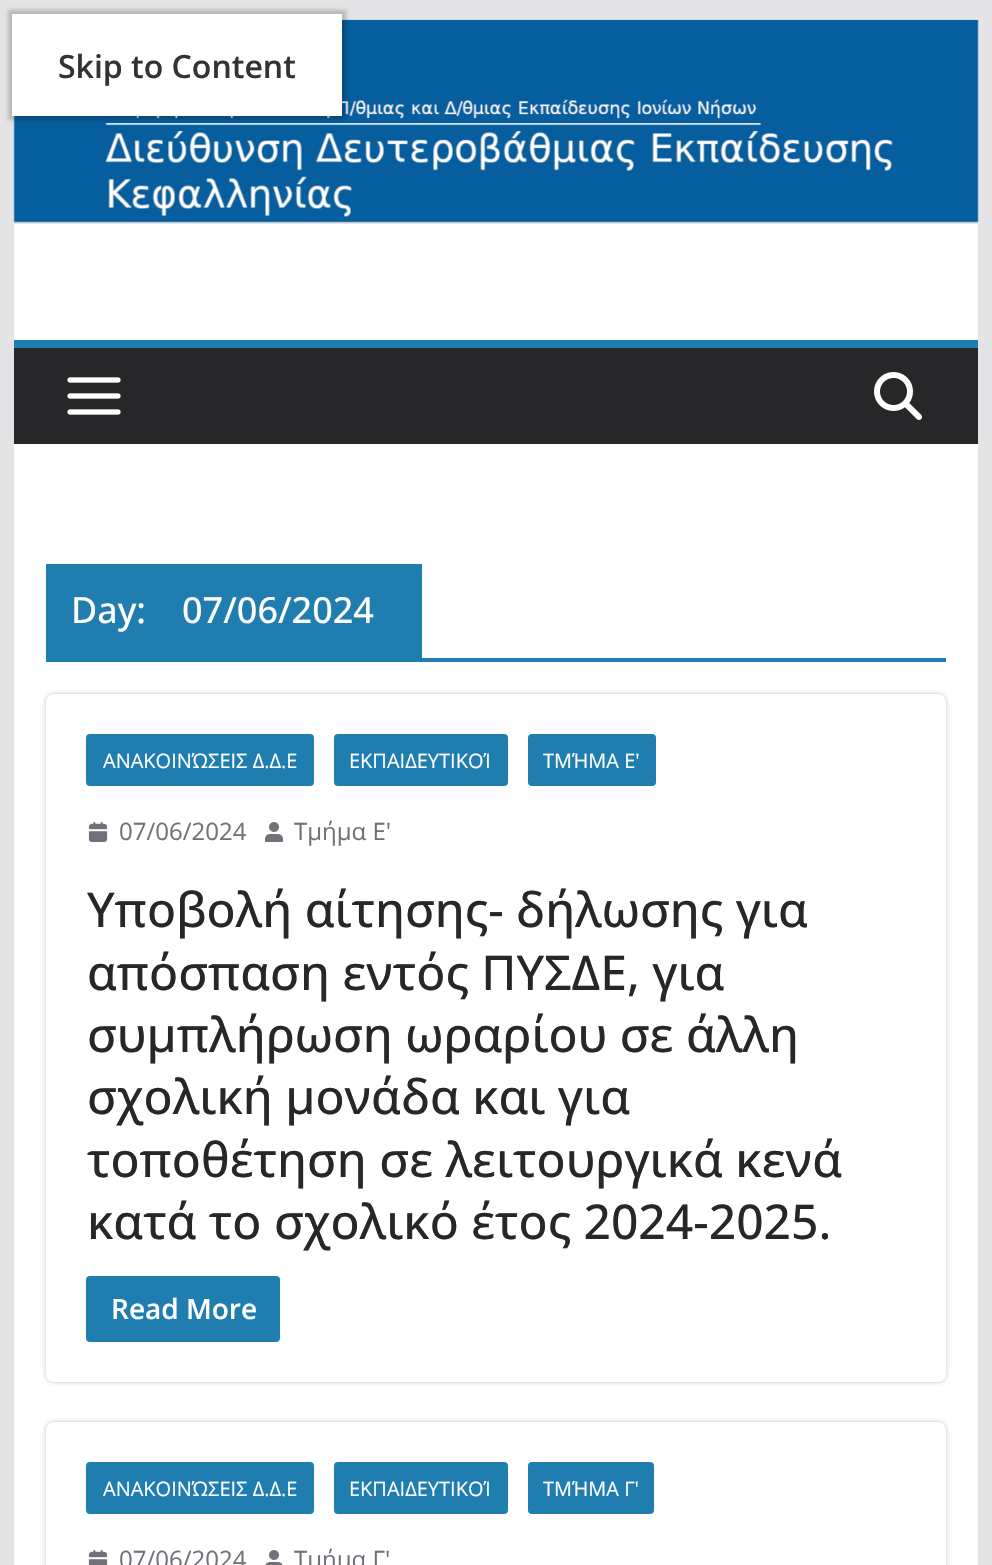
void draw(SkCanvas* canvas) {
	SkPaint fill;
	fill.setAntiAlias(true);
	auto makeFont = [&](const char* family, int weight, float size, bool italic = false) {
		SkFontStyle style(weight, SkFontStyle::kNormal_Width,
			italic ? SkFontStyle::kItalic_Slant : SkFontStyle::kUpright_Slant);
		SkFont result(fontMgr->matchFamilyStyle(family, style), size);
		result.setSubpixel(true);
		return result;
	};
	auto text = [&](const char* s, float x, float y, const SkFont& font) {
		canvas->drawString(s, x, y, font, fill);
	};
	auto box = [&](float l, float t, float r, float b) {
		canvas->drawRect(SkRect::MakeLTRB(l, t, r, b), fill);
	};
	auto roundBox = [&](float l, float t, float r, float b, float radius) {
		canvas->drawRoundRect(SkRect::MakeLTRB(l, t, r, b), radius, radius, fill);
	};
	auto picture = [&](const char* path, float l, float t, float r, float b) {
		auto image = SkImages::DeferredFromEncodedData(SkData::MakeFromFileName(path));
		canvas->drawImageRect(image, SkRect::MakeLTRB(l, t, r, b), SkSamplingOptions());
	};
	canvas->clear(0xFFE4E4E7);
	fill.setColor(0xFFFFFFFF);
	box(14, 20, 978, 340);
	fill.setColor(0xFFE4E4E7);
	box(14, 222, 978, 224);
	picture("image0.png", 13, 19, 979, 223);
	fill.setColor(0x33000000);
	fill.setMaskFilter(SkMaskFilter::MakeBlur(kNormal_SkBlurStyle, 2));
	canvas->drawRect(SkRect::MakeLTRB(8, 10, 346, 120), fill);
	fill.setMaskFilter(nullptr);
	fill.setColor(0xFFFFFFFF);
	box(12, 14, 342, 116);
	fill.setColor(0xFF27272A);
	box(14, 348, 978, 444);
	fill.setColor(0xFF207DAF);
	box(14, 340, 978, 348);
	picture("image1.png", 67, 377, 121, 415);
	picture("image2.png", 874, 372, 922, 420);
	fill.setColor(0xFFFFFFFF);
	box(14, 444, 978, 1565);
	fill.setColor(0xFF207DAF);
	box(46, 658, 946, 662);
	box(46, 564, 422, 658);
	canvas->save();
	canvas->clipPath(SkPathBuilder(SkPathFillType::kEvenOdd).moveTo(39, 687).lineTo(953, 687).lineTo(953, 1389).lineTo(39, 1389).close().moveTo(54, 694).lineTo(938, 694).cubicTo(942.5f, 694, 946, 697.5f, 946, 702).lineTo(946, 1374).cubicTo(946, 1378.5f, 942.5f, 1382, 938, 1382).lineTo(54, 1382).cubicTo(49.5f, 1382, 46, 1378.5f, 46, 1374).lineTo(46, 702).cubicTo(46, 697.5f, 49.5f, 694, 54, 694).close().detach(), true);
	fill.setColor(0x3D000000);
	fill.setMaskFilter(SkMaskFilter::MakeBlur(kNormal_SkBlurStyle, 2));
	canvas->drawRoundRect(SkRect::MakeLTRB(46, 694, 946, 1382), 8, 8, fill);
	fill.setMaskFilter(nullptr);
	canvas->restore();
	fill.setColor(0xFF207DAF);
	roundBox(86, 734, 314, 786, 4);
	roundBox(334, 734, 508, 786, 4);
	roundBox(528, 734, 656, 786, 4);
	picture("image3.png", 88, 822, 108, 842);
	picture("image4.png", 265, 822, 283, 842);
	roundBox(86, 1276, 280, 1342, 4);
	canvas->save();
	canvas->clipPath(SkPathBuilder(SkPathFillType::kEvenOdd).moveTo(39, 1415).lineTo(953, 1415).lineTo(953, 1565).lineTo(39, 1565).close().moveTo(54, 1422).lineTo(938, 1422).cubicTo(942.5f, 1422, 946, 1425.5f, 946, 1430).lineTo(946, 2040).cubicTo(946, 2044.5f, 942.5f, 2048, 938, 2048).lineTo(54, 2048).cubicTo(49.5f, 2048, 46, 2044.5f, 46, 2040).lineTo(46, 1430).cubicTo(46, 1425.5f, 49.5f, 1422, 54, 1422).close().detach(), true);
	fill.setColor(0x3D000000);
	fill.setMaskFilter(SkMaskFilter::MakeBlur(kNormal_SkBlurStyle, 2));
	canvas->drawRoundRect(SkRect::MakeLTRB(46, 1422, 946, 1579), 8, 8, fill);
	fill.setMaskFilter(nullptr);
	canvas->restore();
	fill.setColor(0xFF207DAF);
	roundBox(86, 1462, 314, 1514, 4);
	roundBox(334, 1462, 508, 1514, 4);
	roundBox(528, 1462, 654, 1514, 4);
	picture("image5.png", 88, 1550, 108, 1565);
	picture("image6.png", 265, 1550, 283, 1565);
	auto font1 = makeFont("Open Sans", 600, 32);
	fill.setColor(0xFF333333);
	text("Skip to Content", 58, 78, font1);
	auto font2 = makeFont("Open Sans", 500, 36);
	fill.setColor(0xFFFFFFFF);
	text("Day:", 71, 623, font2);
	text("07/06/2024", 182, 623, font2);
	auto font3 = makeFont("Open Sans", 400, 20);
	text("ΑΝΑΚΟΙΝΏΣΕΙΣ Δ.Δ.Ε", 103, 768, font3);
	text("ΕΚΠΑΙΔΕΥΤΙΚΟΊ", 349, 768, font3);
	text("ΤΜΉΜΑ Ε'", 543, 768, font3);
	auto font4 = makeFont("Open Sans", 400, 24);
	fill.setColor(0xFF71717A);
	text("07/06/2024", 119, 840, font4);
	text("Τμήμα Ε'", 294, 840, font4);
	auto font5 = makeFont("Open Sans", 500, 48);
	fill.setColor(0xFF27272A);
	text("Υποβολή αίτησης- δήλωσης για", 87, 927, font5);
	text("απόσπαση εντός ΠΥΣΔΕ, για", 87, 990, font5);
	text("συμπλήρωση ωραρίου σε άλλη", 87, 1052, font5);
	text("σχολική μονάδα και για", 87, 1114, font5);
	text("τοποθέτηση σε λειτουργικά κενά", 87, 1177, font5);
	text("κατά το σχολικό έτος 2024-2025.", 87, 1239, font5);
	auto font6 = makeFont("Open Sans", 600, 28);
	fill.setColor(0xFFFFFFFF);
	text("Read More", 111, 1319, font6);
	text("ΑΝΑΚΟΙΝΏΣΕΙΣ Δ.Δ.Ε", 103, 1496, font3);
	text("ΕΚΠΑΙΔΕΥΤΙΚΟΊ", 349, 1496, font3);
	text("ΤΜΉΜΑ Γ'", 543, 1496, font3);
	fill.setColor(0xFF71717A);
	text("07/06/2024", 119, 1568, font4);
	text("Τμήμα Γ'", 294, 1568, font4);
}
